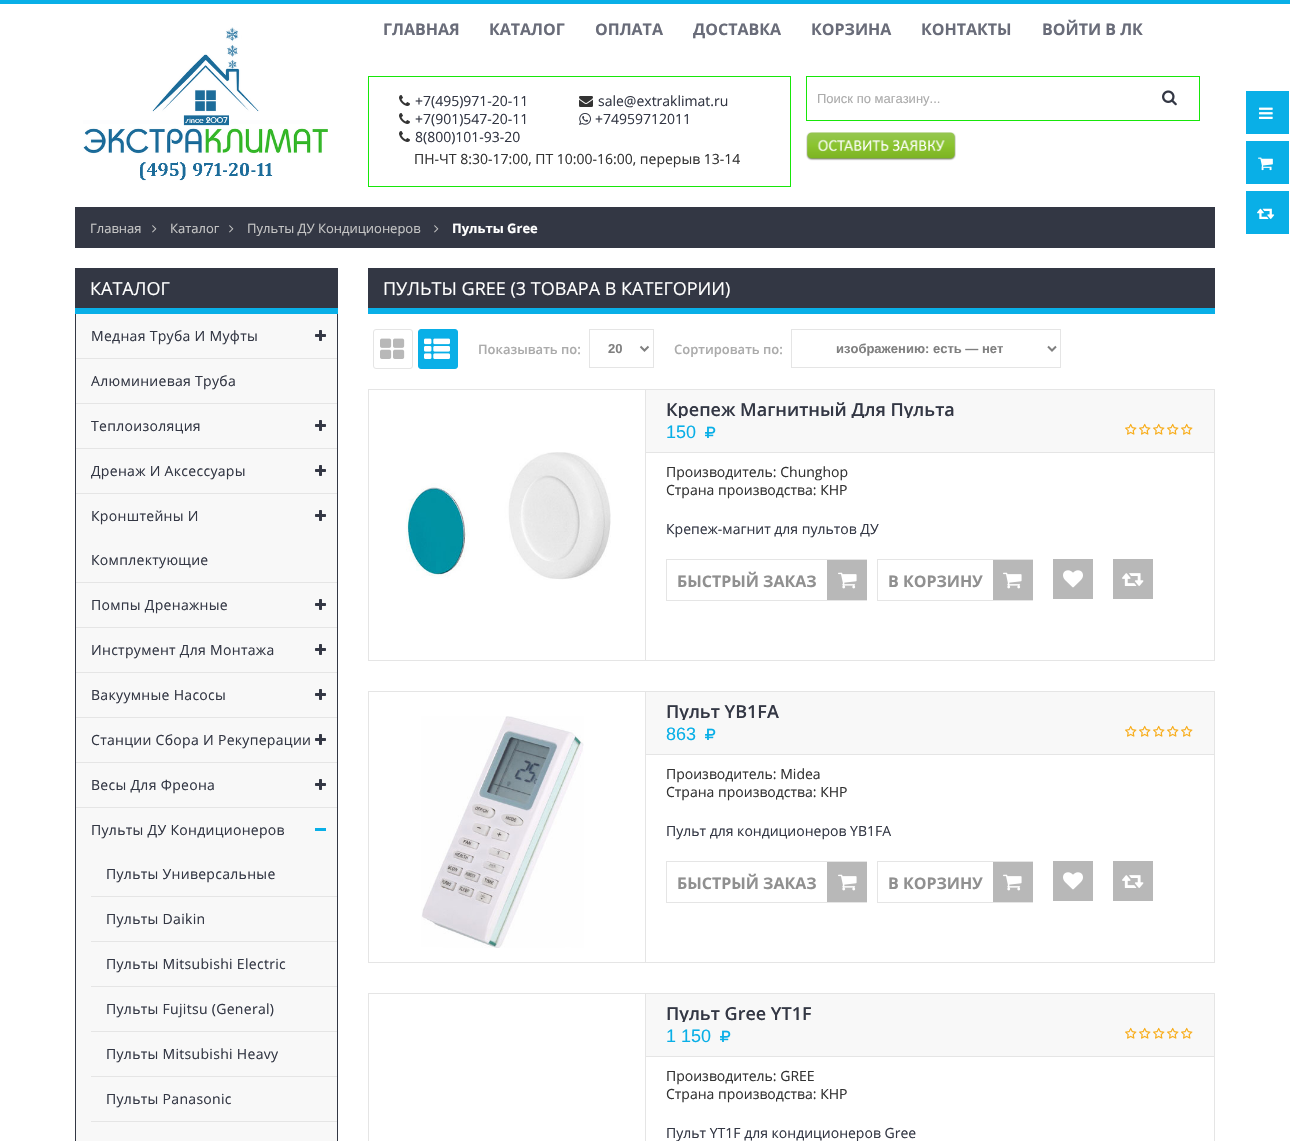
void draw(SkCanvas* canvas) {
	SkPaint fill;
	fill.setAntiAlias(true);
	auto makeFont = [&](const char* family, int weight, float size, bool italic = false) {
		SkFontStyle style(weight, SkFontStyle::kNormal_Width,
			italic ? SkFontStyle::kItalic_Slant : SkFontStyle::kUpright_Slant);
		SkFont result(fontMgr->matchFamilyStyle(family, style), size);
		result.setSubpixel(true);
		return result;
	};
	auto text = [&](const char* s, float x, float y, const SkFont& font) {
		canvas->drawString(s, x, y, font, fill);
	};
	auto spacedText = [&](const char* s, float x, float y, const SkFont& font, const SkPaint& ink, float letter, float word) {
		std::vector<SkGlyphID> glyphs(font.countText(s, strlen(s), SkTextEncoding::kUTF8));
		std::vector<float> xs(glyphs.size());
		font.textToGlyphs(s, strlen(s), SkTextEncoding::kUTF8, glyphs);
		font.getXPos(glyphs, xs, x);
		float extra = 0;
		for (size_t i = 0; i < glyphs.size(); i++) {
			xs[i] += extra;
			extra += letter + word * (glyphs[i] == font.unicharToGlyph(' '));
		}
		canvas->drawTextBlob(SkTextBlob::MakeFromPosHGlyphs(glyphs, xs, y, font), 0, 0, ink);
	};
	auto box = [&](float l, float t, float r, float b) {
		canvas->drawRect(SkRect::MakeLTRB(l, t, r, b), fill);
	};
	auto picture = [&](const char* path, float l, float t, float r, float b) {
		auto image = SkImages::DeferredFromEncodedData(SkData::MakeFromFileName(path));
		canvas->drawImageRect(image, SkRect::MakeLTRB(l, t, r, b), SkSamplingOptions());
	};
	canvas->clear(0xFFFFFFFF);
	fill.setColor(0xFF09AFE7);
	box(0, 0, 1290, 4);
	picture("image0.png", 83, 27, 328, 181);
	fill.setStyle(SkPaint::kStroke_Style);
	fill.setStrokeWidth(1);
	fill.setColor(0xFF17E709);
	canvas->drawRect(SkRect::MakeLTRB(368.5f, 76.5f, 790.5f, 186.5f), fill);
	picture("image1.png", 399, 95, 410, 106);
	picture("image1.png", 399, 113, 410, 124);
	picture("image1.png", 399, 131, 410, 142);
	picture("image2.png", 579, 96, 593, 107);
	picture("image3.png", 579, 113, 591, 125);
	canvas->drawRect(SkRect::MakeLTRB(806.5f, 76.5f, 1199.5f, 120.5f), fill);
	picture("image4.png", 1162, 90, 1177, 106);
	picture("image5.png", 806, 132, 956, 161);
	fill.setStyle(SkPaint::kFill_Style);
	fill.setColor(0xFF09AFE7);
	box(1246, 91, 1289, 134);
	picture("image6.png", 1259, 107, 1273, 119);
	box(1246, 141, 1289, 184);
	picture("image7.png", 1258, 157, 1273, 171);
	box(1246, 191, 1289, 234);
	picture("image8.png", 1257, 208, 1275, 219);
	fill.setColor(0xFF333744);
	box(75, 207, 1215, 248);
	picture("image9.png", 152, 225, 157, 233);
	picture("image9.png", 229, 225, 234, 233);
	picture("image9.png", 434, 225, 439, 233);
	box(75, 268, 338, 308);
	fill.setColor(0xFF09AFE7);
	box(75, 308, 338, 314);
	fill.setColor(0xFF333744);
	box(337, 314, 338, 1141);
	box(75, 314, 76, 1141);
	fill.setColor(0xFFF8F8F8);
	box(76, 314, 337, 358);
	fill.setColor(0xFFE5E5E5);
	box(76, 358, 337, 359);
	picture("image10.png", 315, 330, 326, 341);
	fill.setColor(0xFFF8F8F8);
	box(76, 359, 337, 403);
	fill.setColor(0xFFE5E5E5);
	box(76, 403, 337, 404);
	fill.setColor(0xFFF8F8F8);
	box(76, 404, 337, 448);
	fill.setColor(0xFFE5E5E5);
	box(76, 448, 337, 449);
	picture("image10.png", 315, 420, 326, 431);
	fill.setColor(0xFFF8F8F8);
	box(76, 449, 337, 493);
	fill.setColor(0xFFE5E5E5);
	box(76, 493, 337, 494);
	picture("image10.png", 315, 465, 326, 476);
	fill.setColor(0xFFF8F8F8);
	box(76, 494, 337, 582);
	fill.setColor(0xFFE5E5E5);
	box(76, 582, 337, 583);
	picture("image10.png", 315, 510, 326, 521);
	fill.setColor(0xFFF8F8F8);
	box(76, 583, 337, 627);
	fill.setColor(0xFFE5E5E5);
	box(76, 627, 337, 628);
	picture("image10.png", 315, 599, 326, 610);
	fill.setColor(0xFFF8F8F8);
	box(76, 628, 337, 672);
	fill.setColor(0xFFE5E5E5);
	box(76, 672, 337, 673);
	picture("image10.png", 315, 644, 326, 655);
	fill.setColor(0xFFF8F8F8);
	box(76, 673, 337, 717);
	fill.setColor(0xFFE5E5E5);
	box(76, 717, 337, 718);
	picture("image10.png", 315, 689, 326, 700);
	fill.setColor(0xFFF8F8F8);
	box(76, 718, 337, 762);
	fill.setColor(0xFFE5E5E5);
	box(76, 762, 337, 763);
	picture("image10.png", 315, 734, 326, 745);
	fill.setColor(0xFFF8F8F8);
	box(76, 763, 337, 807);
	fill.setColor(0xFFE5E5E5);
	box(76, 807, 337, 808);
	picture("image10.png", 315, 779, 326, 790);
	fill.setColor(0xFFF8F8F8);
	box(76, 808, 337, 1141);
	fill.setColor(0xFF09AFE7);
	box(315, 828, 326, 831);
	fill.setColor(0xFFE5E5E5);
	box(91, 896, 337, 897);
	box(91, 941, 337, 942);
	box(91, 986, 337, 987);
	box(91, 1031, 337, 1032);
	box(91, 1076, 337, 1077);
	box(91, 1121, 337, 1122);
	fill.setColor(0xFF333744);
	box(368, 268, 1215, 308);
	fill.setColor(0xFF09AFE7);
	box(368, 308, 1215, 314);
	fill.setStyle(SkPaint::kStroke_Style);
	fill.setColor(0xFFE5E5E5);
	canvas->drawRoundRect(SkRect::MakeLTRB(373.5f, 329.5f, 412.5f, 368.5f), 2.5f, 2.5f, fill);
	picture("image11.png", 380, 338, 405, 359);
	fill.setStyle(SkPaint::kFill_Style);
	fill.setColor(0xFF09AFE7);
	canvas->drawRoundRect(SkRect::MakeLTRB(418.5f, 329.5f, 457.5f, 368.5f), 2.5f, 2.5f, fill);
	fill.setStyle(SkPaint::kStroke_Style);
	canvas->drawRoundRect(SkRect::MakeLTRB(418.5f, 329.5f, 457.5f, 368.5f), 2.5f, 2.5f, fill);
	picture("image12.png", 424, 338, 450, 359);
	fill.setColor(0xFFE5E5E5);
	canvas->drawRect(SkRect::MakeLTRB(589.5f, 329.5f, 653.5f, 367.5f), fill);
	fill.setStrokeWidth(2);
	fill.setColor(0xFF7F7F7F);
	canvas->drawPath(SkPathBuilder().moveTo(640.5f, 346.5f).lineTo(644.5f, 350.5f).lineTo(648.5f, 346.5f).detach(), fill);
	fill.setStrokeWidth(1);
	fill.setColor(0xFFE5E5E5);
	canvas->drawRect(SkRect::MakeLTRB(791.5f, 329.5f, 1060.5f, 367.5f), fill);
	fill.setStrokeWidth(2);
	fill.setColor(0xFF7F7F7F);
	canvas->drawPath(SkPathBuilder().moveTo(1048, 346.5f).lineTo(1052, 350.5f).lineTo(1056, 346.5f).detach(), fill);
	fill.setStrokeWidth(1);
	fill.setColor(0xFFE5E5E5);
	canvas->drawRect(SkRect::MakeLTRB(368.5f, 389.5f, 1214.5f, 660.5f), fill);
	picture("image13.png", 406, 452, 611, 580);
	fill.setStyle(SkPaint::kFill_Style);
	box(645, 390, 646, 660);
	fill.setColor(0xFFF8F8F8);
	box(646, 390, 1214, 452);
	fill.setColor(0xFFE5E5E5);
	box(646, 452, 1214, 453);
	picture("image14.png", 705, 426, 716, 438);
	picture("image15.png", 1125, 423, 1193, 435);
	fill.setStyle(SkPaint::kStroke_Style);
	canvas->drawRect(SkRect::MakeLTRB(666.5f, 559.5f, 866.5f, 600.5f), fill);
	fill.setStyle(SkPaint::kFill_Style);
	fill.setColor(0xFFB8B8B8);
	box(827, 560, 867, 600);
	picture("image16.png", 838, 572, 857, 589);
	fill.setStyle(SkPaint::kStroke_Style);
	fill.setColor(0xFFE5E5E5);
	canvas->drawRect(SkRect::MakeLTRB(877.5f, 559.5f, 1032.5f, 600.5f), fill);
	fill.setStyle(SkPaint::kFill_Style);
	fill.setColor(0xFFB8B8B8);
	box(993, 560, 1033, 600);
	picture("image16.png", 1003, 572, 1022, 589);
	box(1053, 559, 1093, 599);
	picture("image17.png", 1063, 570, 1083, 588);
	box(1113, 559, 1153, 599);
	picture("image18.png", 1122, 573, 1144, 586);
	fill.setStyle(SkPaint::kStroke_Style);
	fill.setColor(0xFFE5E5E5);
	canvas->drawRect(SkRect::MakeLTRB(368.5f, 691.5f, 1214.5f, 962.5f), fill);
	picture("image19.png", 421, 716, 584, 948);
	fill.setStyle(SkPaint::kFill_Style);
	box(645, 692, 646, 962);
	fill.setColor(0xFFF8F8F8);
	box(646, 692, 1214, 754);
	fill.setColor(0xFFE5E5E5);
	box(646, 754, 1214, 755);
	picture("image14.png", 705, 728, 716, 740);
	picture("image15.png", 1125, 725, 1193, 737);
	fill.setStyle(SkPaint::kStroke_Style);
	canvas->drawRect(SkRect::MakeLTRB(666.5f, 861.5f, 866.5f, 902.5f), fill);
	fill.setStyle(SkPaint::kFill_Style);
	fill.setColor(0xFFB8B8B8);
	box(827, 862, 867, 902);
	picture("image16.png", 838, 874, 857, 891);
	fill.setStyle(SkPaint::kStroke_Style);
	fill.setColor(0xFFE5E5E5);
	canvas->drawRect(SkRect::MakeLTRB(877.5f, 861.5f, 1032.5f, 902.5f), fill);
	fill.setStyle(SkPaint::kFill_Style);
	fill.setColor(0xFFB8B8B8);
	box(993, 862, 1033, 902);
	picture("image16.png", 1003, 874, 1022, 891);
	box(1053, 861, 1093, 901);
	picture("image17.png", 1063, 872, 1083, 890);
	box(1113, 861, 1153, 901);
	picture("image18.png", 1122, 875, 1144, 888);
	fill.setStyle(SkPaint::kStroke_Style);
	fill.setColor(0xFFE5E5E5);
	canvas->drawRect(SkRect::MakeLTRB(368.5f, 993.5f, 1214.5f, 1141.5f), fill);
	fill.setStyle(SkPaint::kFill_Style);
	box(645, 994, 646, 1141);
	fill.setColor(0xFFF8F8F8);
	box(646, 994, 1214, 1056);
	fill.setColor(0xFFE5E5E5);
	box(646, 1056, 1214, 1057);
	picture("image14.png", 720, 1030, 731, 1042);
	picture("image15.png", 1125, 1027, 1193, 1039);
	auto font1 = makeFont("Open Sans", 700, 16);
	fill.setColor(0xFF696C79);
	text("ГЛАВНАЯ", 383, 35, font1);
	text("КАТАЛОГ", 489, 35, font1);
	text("ОПЛАТА", 595, 35, font1);
	text("ДОСТАВКА", 693, 35, font1);
	text("КОРЗИНА", 811, 35, font1);
	text("КОНТАКТЫ", 921, 35, font1);
	text("ВОЙТИ В ЛК", 1042, 35, font1);
	auto font2 = makeFont("Open Sans", 400, 14);
	fill.setColor(0xFF333744);
	text("+7(495)971-20-11", 415, 106, font2);
	text("+7(901)547-20-11", 415, 124, font2);
	text("8(800)101-93-20", 415, 142, font2);
	text("sale@extraklimat.ru", 598, 106, font2);
	text("+74959712011", 595, 124, font2);
	fill.setColor(0xFF333333);
	text("ПН-ЧТ 8:30-17:00, ПТ 10:00-16:00, перерыв 13-14", 414, 164, font2);
	auto font3 = makeFont("Liberation Sans", 400, 13);
	fill.setColor(0xFFABABAB);
	text("Поиск по магазину...", 817, 103, font3);
	auto font4 = makeFont("Open Sans", 400, 13);
	fill.setColor(0xFFC5C5C5);
	text("Главная", 90, 233, font4);
	text("Каталог", 170, 233, font4);
	text("Пульты ДУ Кондиционеров", 247, 233, font4);
	auto font5 = makeFont("Open Sans", 700, 13);
	fill.setColor(0xFFFFFFFF);
	text("Пульты Gree", 452, 233, font5);
	auto font6 = makeFont("Open Sans", 400, 18);
	text("КАТАЛОГ", 90, 295, font6);
	fill.setColor(0xFF333744);
	spacedText("Медная Труба И Муфты", 91, 341, font2, fill, 0.3f, 0);
	spacedText("Алюминиевая Труба", 91, 386, font2, fill, 0.3f, 0);
	spacedText("Теплоизоляция", 91, 431, font2, fill, 0.3f, 0);
	spacedText("Дренаж И Аксессуары", 91, 476, font2, fill, 0.3f, 0);
	spacedText("Кронштейны И", 91, 521, font2, fill, 0.3f, 0);
	spacedText("Комплектующие", 91, 565, font2, fill, 0.3f, 0);
	spacedText("Помпы Дренажные", 91, 610, font2, fill, 0.3f, 0);
	spacedText("Инструмент Для Монтажа", 91, 655, font2, fill, 0.3f, 0);
	spacedText("Вакуумные Насосы", 91, 700, font2, fill, 0.3f, 0);
	spacedText("Станции Сбора И Рекуперации", 91, 745, font2, fill, 0.3f, 0);
	spacedText("Весы Для Фреона", 91, 790, font2, fill, 0.3f, 0);
	spacedText("Пульты ДУ Кондиционеров", 91, 835, font2, fill, 0.3f, 0);
	spacedText("Пульты Универсальные", 106, 879, font2, fill, 0.3f, 0);
	spacedText("Пульты Daikin", 106, 924, font2, fill, 0.3f, 0);
	spacedText("Пульты Mitsubishi Electric", 106, 969, font2, fill, 0.3f, 0);
	spacedText("Пульты Fujitsu (General)", 106, 1014, font2, fill, 0.3f, 0);
	spacedText("Пульты Mitsubishi Heavy", 106, 1059, font2, fill, 0.3f, 0);
	spacedText("Пульты Panasonic", 106, 1104, font2, fill, 0.3f, 0);
	fill.setColor(0xFFFFFFFF);
	text("ПУЛЬТЫ GREE (3 ТОВАРА В КАТЕГОРИИ)", 383, 295, font6);
	auto font7 = makeFont("Open Sans", 600, 13);
	fill.setColor(0xFFABABAB);
	text("Показывать по:", 478, 354, font7);
	auto font8 = makeFont("Liberation Sans", 700, 13);
	fill.setColor(0xFF7F7F7F);
	text("20", 608, 353, font8);
	fill.setColor(0xFFABABAB);
	text("Сортировать по:", 674, 354, font7);
	fill.setColor(0xFF7F7F7F);
	text("изображению: есть — нет", 836, 353, font8);
	canvas->save();
	canvas->clipRect(SkRect::MakeLTRB(666, 400, 1194, 418));
	auto font9 = makeFont("Open Sans", 600, 18);
	fill.setColor(0xFF333744);
	text("Крепеж Магнитный Для Пульта", 666, 416, font9);
	canvas->restore();
	auto font10 = makeFont("Liberation Sans", 400, 18);
	fill.setColor(0xFF09AFE7);
	text("150", 666, 438, font10);
	fill.setColor(0xFF333333);
	text("Производитель: Chunghop", 666, 477, font2);
	text("Страна производства: КНР", 666, 495, font2);
	fill.setColor(0xFF333744);
	text("Крепеж-магнит для пультов ДУ", 666, 534, font2);
	fill.setColor(0xFF909090);
	text("БЫСТРЫЙ ЗАКАЗ", 677, 587, font1);
	text("В КОРЗИНУ", 888, 587, font1);
	canvas->save();
	canvas->clipRect(SkRect::MakeLTRB(666, 702, 1194, 720));
	fill.setColor(0xFF333744);
	text("Пульт YB1FA", 666, 718, font9);
	canvas->restore();
	fill.setColor(0xFF09AFE7);
	text("863", 666, 740, font10);
	fill.setColor(0xFF333333);
	text("Производитель: Midea", 666, 779, font2);
	text("Страна производства: КНР", 666, 797, font2);
	fill.setColor(0xFF333744);
	text("Пульт для кондиционеров YB1FA", 666, 836, font2);
	fill.setColor(0xFF909090);
	text("БЫСТРЫЙ ЗАКАЗ", 677, 889, font1);
	text("В КОРЗИНУ", 888, 889, font1);
	canvas->save();
	canvas->clipRect(SkRect::MakeLTRB(666, 1004, 1194, 1022));
	fill.setColor(0xFF333744);
	text("Пульт Gree YT1F", 666, 1020, font9);
	canvas->restore();
	fill.setColor(0xFF09AFE7);
	text("1 150", 666, 1042, font10);
	fill.setColor(0xFF333333);
	text("Производитель: GREE", 666, 1081, font2);
	text("Страна производства: КНР", 666, 1099, font2);
	fill.setColor(0xFF333744);
	text("Пульт YT1F для кондиционеров Gree", 666, 1138, font2);
}
